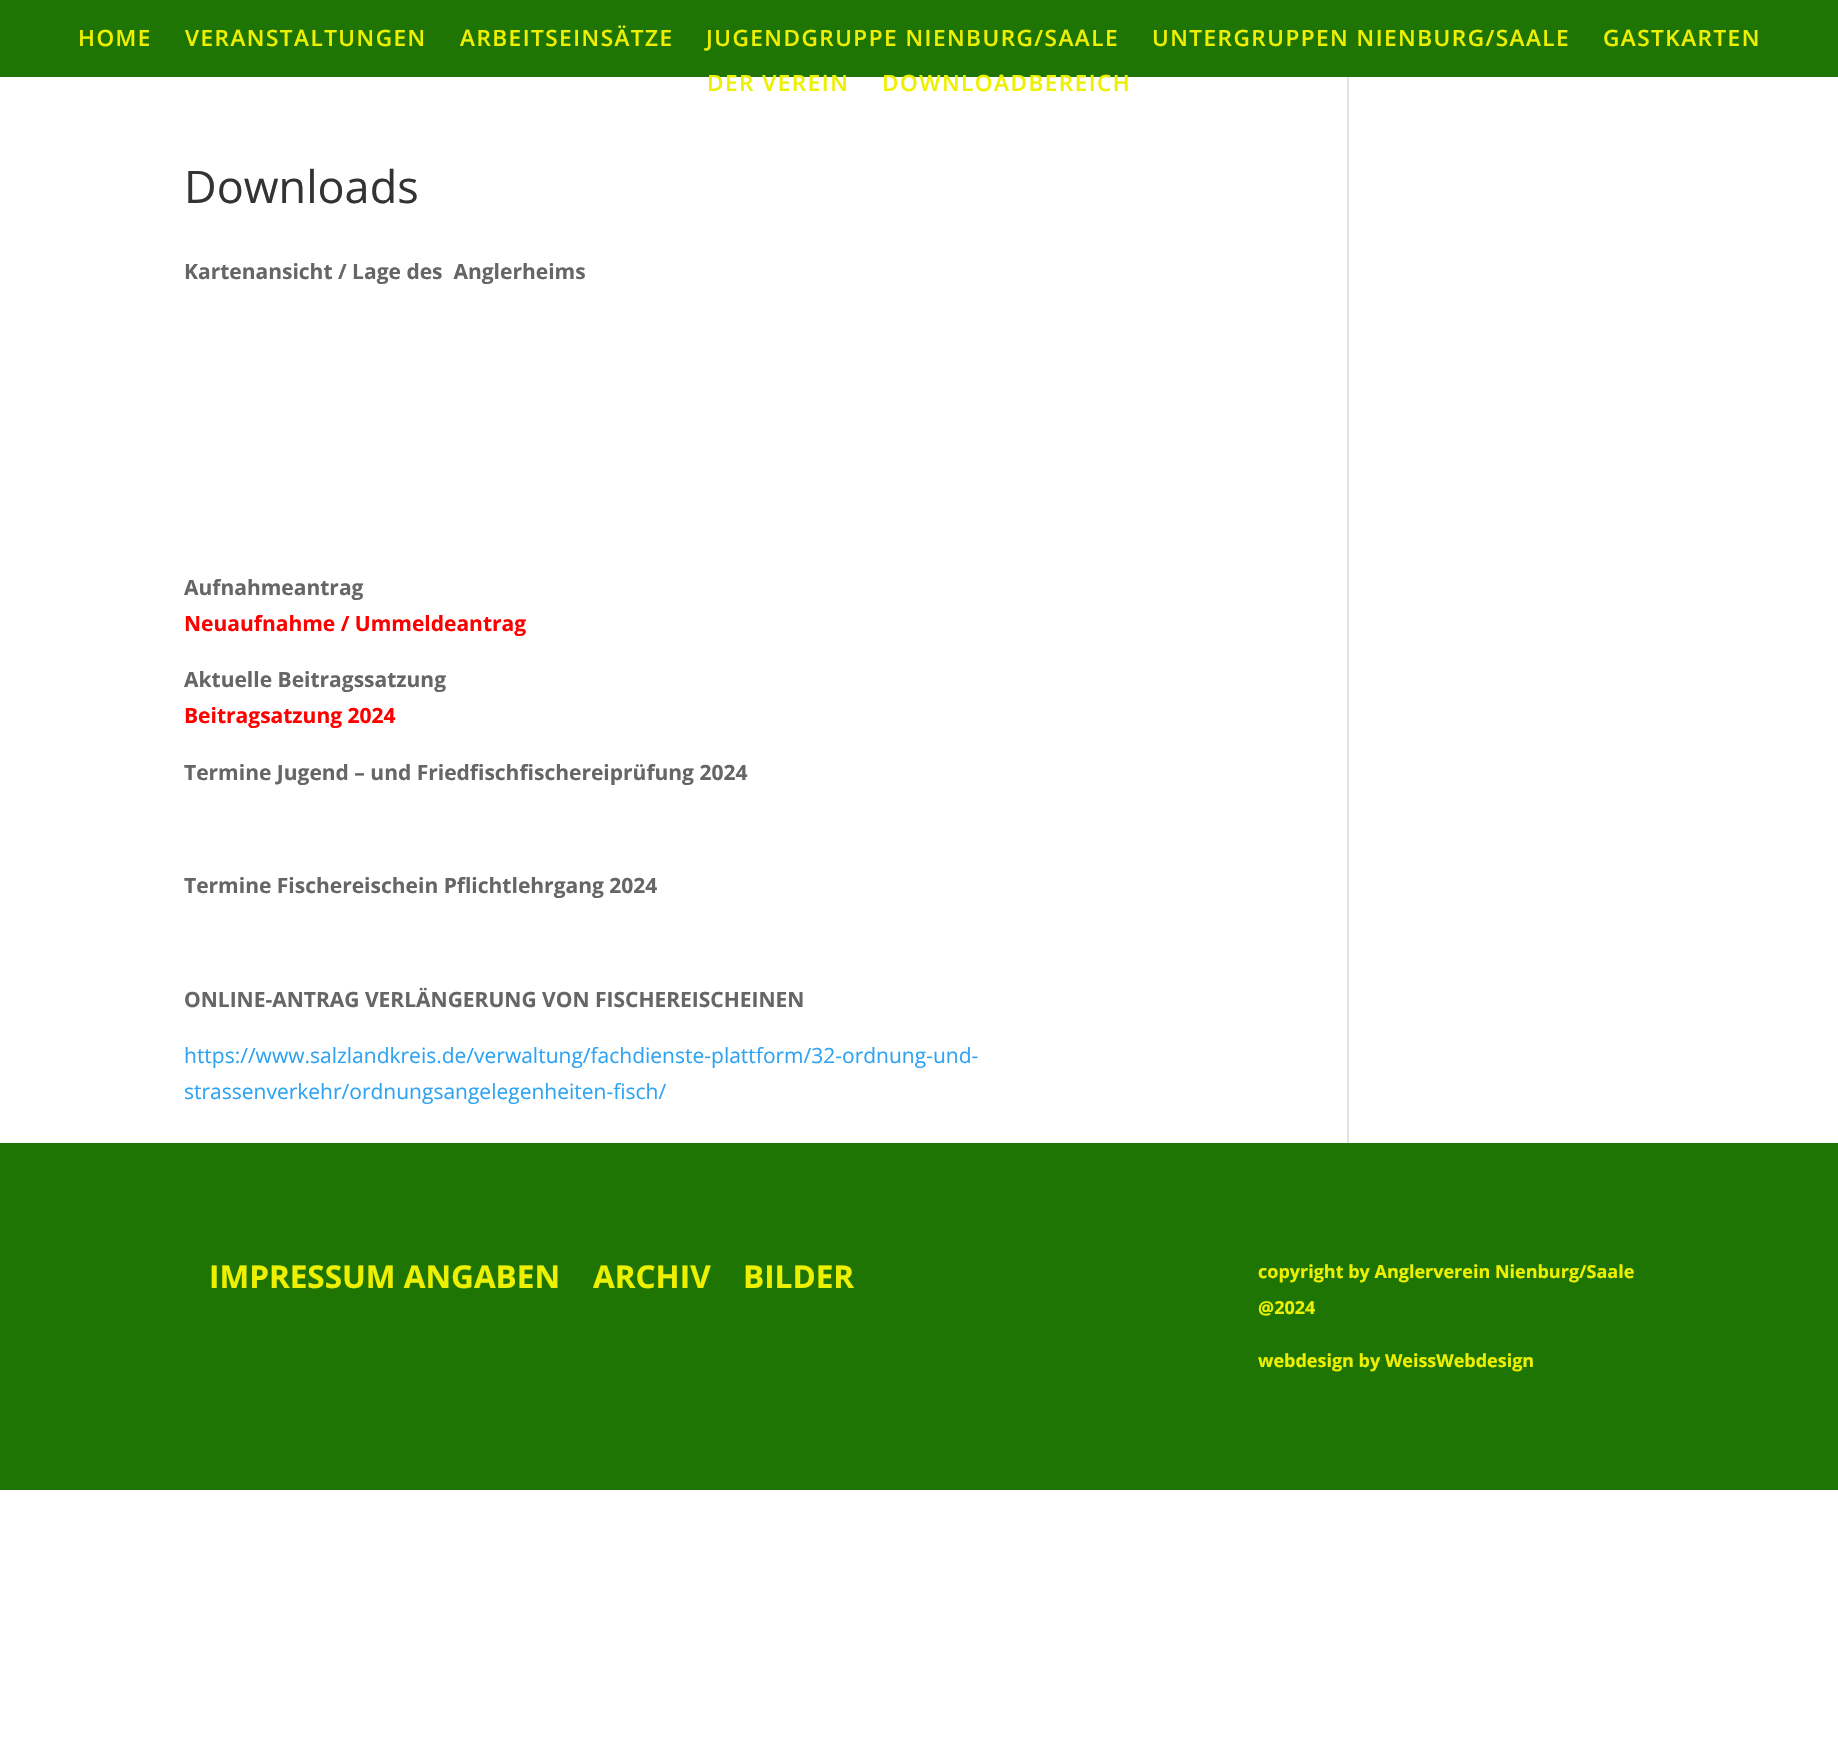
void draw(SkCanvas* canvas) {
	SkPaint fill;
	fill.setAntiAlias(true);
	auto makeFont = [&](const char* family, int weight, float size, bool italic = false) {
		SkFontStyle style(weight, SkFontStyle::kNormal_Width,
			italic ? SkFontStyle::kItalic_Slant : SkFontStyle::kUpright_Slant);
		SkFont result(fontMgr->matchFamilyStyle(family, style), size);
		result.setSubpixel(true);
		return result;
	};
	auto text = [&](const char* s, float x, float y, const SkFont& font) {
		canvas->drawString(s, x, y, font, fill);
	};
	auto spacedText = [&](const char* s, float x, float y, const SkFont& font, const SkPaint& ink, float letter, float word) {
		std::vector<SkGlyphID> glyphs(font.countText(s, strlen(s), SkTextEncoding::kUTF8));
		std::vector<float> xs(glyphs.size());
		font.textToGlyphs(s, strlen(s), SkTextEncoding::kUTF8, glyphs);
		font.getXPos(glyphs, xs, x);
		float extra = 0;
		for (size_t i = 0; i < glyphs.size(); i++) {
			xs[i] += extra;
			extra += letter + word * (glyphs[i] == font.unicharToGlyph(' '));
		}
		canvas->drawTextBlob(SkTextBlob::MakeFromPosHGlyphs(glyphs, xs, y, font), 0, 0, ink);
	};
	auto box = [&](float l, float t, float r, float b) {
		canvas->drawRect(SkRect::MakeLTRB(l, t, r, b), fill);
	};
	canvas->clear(0xFFFFFFFF);
	fill.setColor(0xFF1E7504);
	box(0, 0, 1838, 77);
	fill.setColor(0xFFE2E2E2);
	box(1347, 77, 1349, 1143);
	fill.setColor(0xFF1E7504);
	box(0, 1143, 1838, 1490);
	auto font1 = makeFont("Open Sans", 600, 22.5f);
	fill.setColor(0xFFEDF000);
	spacedText("HOME", 78, 46, font1, fill, 1.5f, 0);
	spacedText("VERANSTALTUNGEN", 185, 46, font1, fill, 1.5f, 0);
	spacedText("ARBEITSEINSÄTZE", 460, 46, font1, fill, 1.5f, 0);
	spacedText("JUGENDGRUPPE NIENBURG/SAALE", 706, 46, font1, fill, 1.5f, 0);
	spacedText("UNTERGRUPPEN NIENBURG/SAALE", 1152, 46, font1, fill, 1.5f, 0);
	spacedText("GASTKARTEN", 1603, 46, font1, fill, 1.5f, 0);
	spacedText("DER VEREIN", 707, 91, font1, fill, 1.5f, 0);
	spacedText("DOWNLOADBEREICH", 882, 91, font1, fill, 1.5f, 0);
	auto font2 = makeFont("Open Sans", 400, 45);
	fill.setColor(0xFF333333);
	text("Downloads", 184, 203, font2);
	auto font3 = makeFont("Open Sans", 700, 21);
	fill.setColor(0xFF666666);
	text("Kartenansicht / Lage des  Anglerheims", 184, 279, font3);
	text("Aufnahmeantrag", 184, 595, font3);
	fill.setColor(0xFFFF0000);
	text("Neuaufnahme / Ummeldeantrag", 184, 631, font3);
	fill.setColor(0xFF666666);
	text("Aktuelle Beitragssatzung", 184, 687, font3);
	fill.setColor(0xFFFF0000);
	text("Beitragsatzung 2024", 184, 723, font3);
	fill.setColor(0xFF666666);
	text("Termine Jugend – und Friedfischfischereiprüfung 2024", 184, 780, font3);
	text("Termine Fischereischein Pflichtlehrgang 2024", 184, 893, font3);
	text("ONLINE-ANTRAG VERLÄNGERUNG VON FISCHEREISCHEINEN", 184, 1007, font3);
	auto font4 = makeFont("Open Sans", 400, 21);
	fill.setColor(0xFF2EA3F2);
	text("https://www.salzlandkreis.de/verwaltung/fachdienste-plattform/32-ordnung-und-", 184, 1063, font4);
	text("strassenverkehr/ordnungsangelegenheiten-fisch/", 184, 1099, font4);
	auto font5 = makeFont("Open Sans", 700, 31.5f);
	fill.setColor(0xFFEDF000);
	text("IMPRESSUM ANGABEN", 209, 1288, font5);
	text("ARCHIV", 593, 1288, font5);
	text("BILDER", 743, 1288, font5);
	auto font6 = makeFont("Open Sans", 700, 18);
	text("copyright by Anglerverein Nienburg/Saale", 1258, 1278, font6);
	text("@2024", 1258, 1314, font6);
	text("webdesign by WeissWebdesign", 1258, 1367, font6);
}
